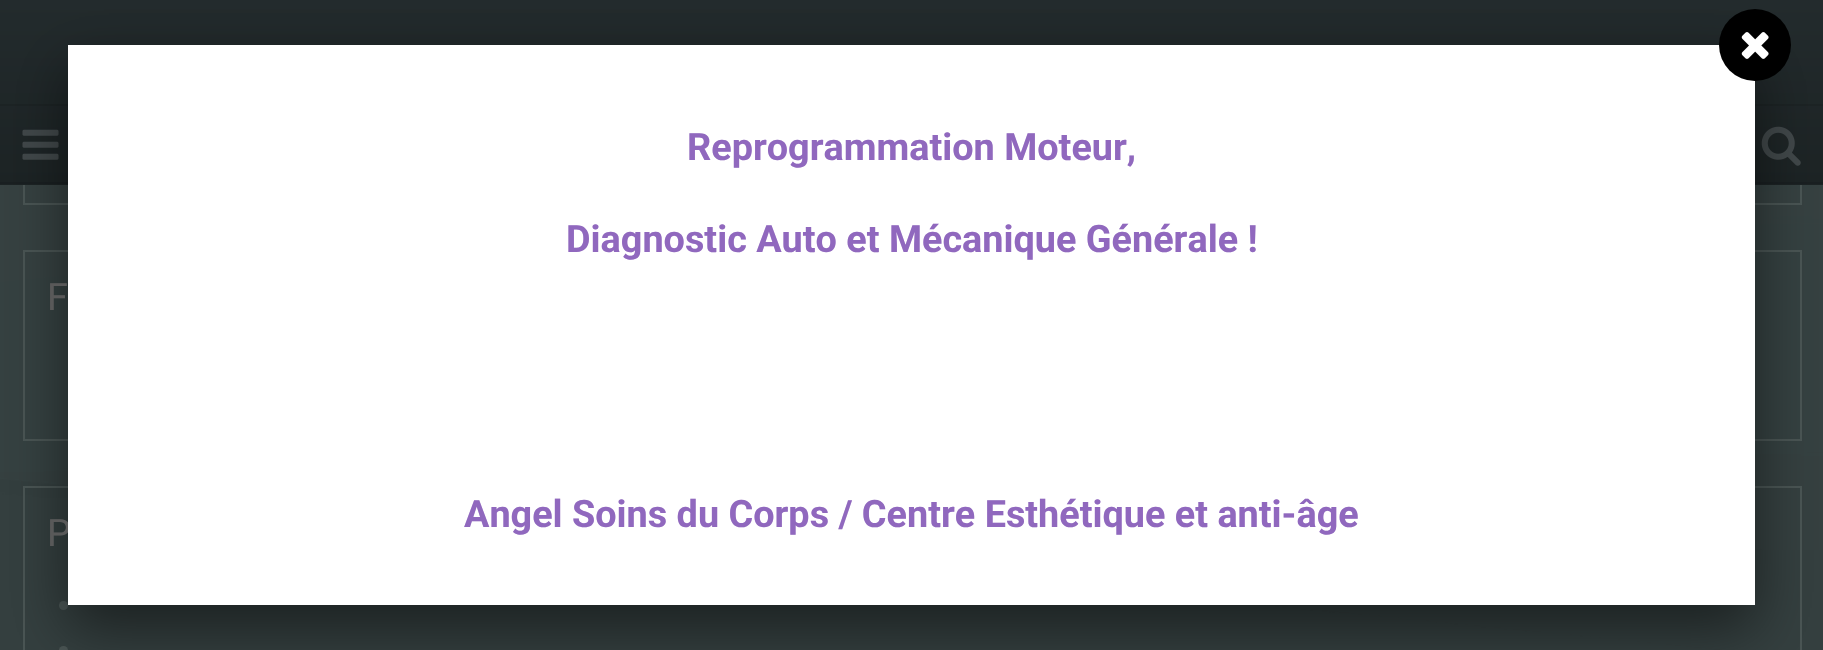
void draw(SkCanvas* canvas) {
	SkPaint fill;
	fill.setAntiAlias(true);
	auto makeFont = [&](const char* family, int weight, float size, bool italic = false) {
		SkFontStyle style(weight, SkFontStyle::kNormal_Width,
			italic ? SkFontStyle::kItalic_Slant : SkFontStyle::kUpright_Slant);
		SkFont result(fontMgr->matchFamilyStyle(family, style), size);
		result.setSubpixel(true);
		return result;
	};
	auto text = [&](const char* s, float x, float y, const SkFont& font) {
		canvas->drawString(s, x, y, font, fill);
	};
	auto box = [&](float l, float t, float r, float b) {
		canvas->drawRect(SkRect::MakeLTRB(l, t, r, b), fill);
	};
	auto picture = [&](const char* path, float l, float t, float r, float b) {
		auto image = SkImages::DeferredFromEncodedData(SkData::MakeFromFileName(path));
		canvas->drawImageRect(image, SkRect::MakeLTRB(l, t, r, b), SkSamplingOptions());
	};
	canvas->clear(0xFF374343);
	picture("image0.png", 0, 185, 1823, 650);
	fill.setStyle(SkPaint::kStroke_Style);
	fill.setStrokeWidth(2);
	fill.setColor(0xFF4A5554);
	canvas->drawRect(SkRect::MakeLTRB(24, -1, 1801, 204), fill);
	fill.setStyle(SkPaint::kFill_Style);
	{
		const SkColor colors[] = {0xFF232B2D, 0xFF1C2324};
		const float stops[] = {0, 1};
		const SkPoint ends[] = {{912, 0}, {912, 185}};
		fill.setShader(SkGradientShader::MakeLinear(ends, colors, stops, 2, SkTileMode::kClamp));
		fill.setAlpha(255);
	}
	box(0, 0, 1823, 185);
	fill.setShader(nullptr);
	fill.setColor(0xFF1C2324);
	box(0, 104, 1823, 106);
	fill.setColor(0xFF191F21);
	box(0, 182, 1823, 184);
	picture("image1.png", 22, 129, 59, 160);
	picture("image2.png", 1761, 126, 1801, 166);
	fill.setStyle(SkPaint::kStroke_Style);
	fill.setColor(0xFF4A5554);
	canvas->drawRect(SkRect::MakeLTRB(24, 251, 1801, 440), fill);
	canvas->drawRect(SkRect::MakeLTRB(24, 487, 1801, 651), fill);
	fill.setStyle(SkPaint::kFill_Style);
	canvas->drawCircle(63.5f, 605.5f, 4.5f, fill);
	canvas->drawCircle(63.5f, 650.5f, 4.5f, fill);
	fill.setColor(0x80000000);
	fill.setMaskFilter(SkMaskFilter::MakeBlur(kNormal_SkBlurStyle, 28));
	canvas->drawRect(SkRect::MakeLTRB(68, 68, 1755, 628), fill);
	fill.setMaskFilter(nullptr);
	auto font1 = makeFont("Roboto", 400, 37.8f);
	fill.setColor(0xFF595959);
	text("F", 47, 310, font1);
	text("P", 47, 546, font1);
	fill.setColor(0xFFFFFFFF);
	box(68, 45, 1755, 605);
	fill.setColor(0xFF000000);
	canvas->drawCircle(1755, 45, 36, fill);
	picture("image3.png", 1741, 32, 1769, 59);
	auto font2 = makeFont("Roboto", 700, 37.8f);
	fill.setColor(0xFF9068BE);
	text("Reprogrammation Moteur,", 687, 160, font2);
	text("Diagnostic Auto et Mécanique Générale !", 566, 252, font2);
	text("Angel Soins du Corps / Centre Esthétique et anti-âge", 464, 527, font2);
}
